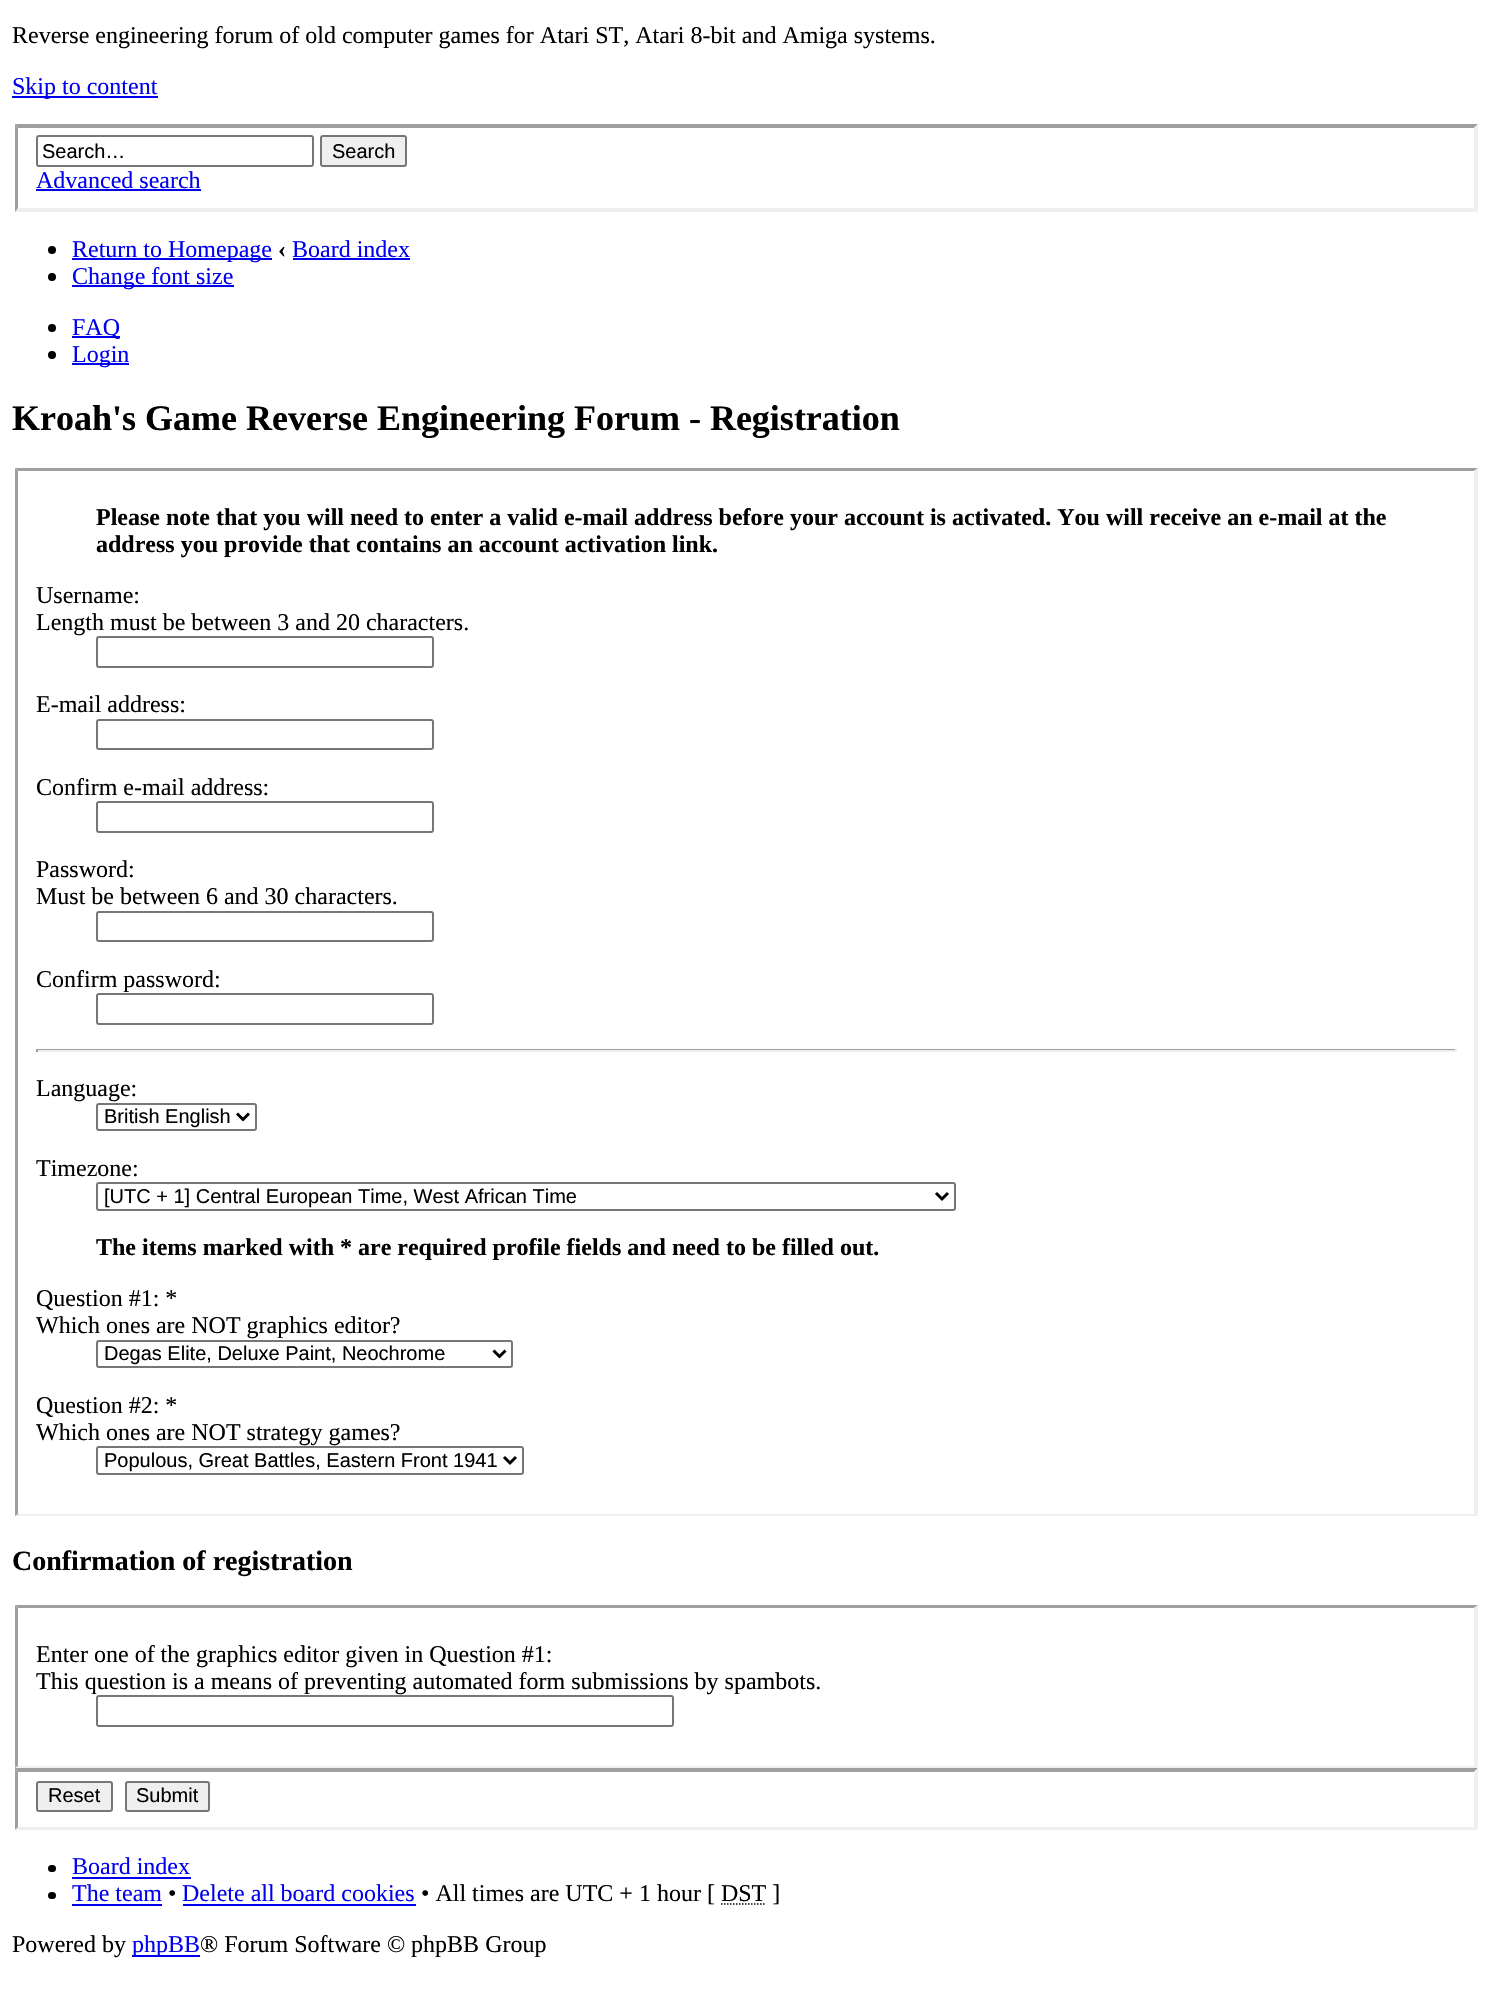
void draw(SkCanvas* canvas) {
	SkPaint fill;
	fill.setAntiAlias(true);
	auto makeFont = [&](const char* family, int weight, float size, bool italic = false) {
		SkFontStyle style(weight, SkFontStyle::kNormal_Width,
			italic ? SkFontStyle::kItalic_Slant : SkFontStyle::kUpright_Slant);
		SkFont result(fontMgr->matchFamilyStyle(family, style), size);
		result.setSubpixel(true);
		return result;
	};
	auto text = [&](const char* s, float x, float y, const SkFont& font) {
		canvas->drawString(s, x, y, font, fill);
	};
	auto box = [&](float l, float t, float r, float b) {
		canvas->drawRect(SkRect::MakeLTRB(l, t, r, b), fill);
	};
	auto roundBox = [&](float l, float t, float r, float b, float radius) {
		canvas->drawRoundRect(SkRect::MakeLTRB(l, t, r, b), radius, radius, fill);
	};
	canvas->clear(0xFFFFFFFF);
	fill.setColor(0xFF0000EE);
	box(12, 96, 158, 98);
	fill.setColor(0xFF9F9F9F);
	canvas->drawPath(SkPathBuilder().moveTo(15, 124).lineTo(1478, 124).lineTo(1474, 128).lineTo(18, 128).close().detach(), fill);
	fill.setColor(0xFFEFEFEF);
	canvas->drawPath(SkPathBuilder().moveTo(1478, 124).lineTo(1478, 212).lineTo(1474, 208).lineTo(1474, 128).close().detach(), fill);
	canvas->drawPath(SkPathBuilder().moveTo(1478, 212).lineTo(15, 212).lineTo(18, 208).lineTo(1474, 208).close().detach(), fill);
	fill.setColor(0xFF9F9F9F);
	canvas->drawPath(SkPathBuilder().moveTo(15, 212).lineTo(15, 124).lineTo(18, 128).lineTo(18, 208).close().detach(), fill);
	fill.setStyle(SkPaint::kStroke_Style);
	fill.setStrokeWidth(2);
	fill.setColor(0xFF767676);
	canvas->drawRoundRect(SkRect::MakeLTRB(37, 136, 313, 166), 2, 2, fill);
	fill.setStyle(SkPaint::kFill_Style);
	fill.setColor(0xFFEFEFEF);
	canvas->drawRoundRect(SkRect::MakeLTRB(321, 136, 406, 166), 2, 2, fill);
	fill.setStyle(SkPaint::kStroke_Style);
	fill.setColor(0xFF767676);
	canvas->drawRoundRect(SkRect::MakeLTRB(321, 136, 406, 166), 2, 2, fill);
	fill.setStyle(SkPaint::kFill_Style);
	fill.setColor(0xFF0000EE);
	box(36, 189, 201, 191);
	fill.setColor(0xFF000000);
	canvas->drawCircle(52, 250, 4, fill);
	fill.setColor(0xFF0000EE);
	box(72, 258, 272, 260);
	box(293, 258, 410, 260);
	fill.setColor(0xFF000000);
	canvas->drawCircle(52, 277, 4, fill);
	fill.setColor(0xFF0000EE);
	box(72, 285, 234, 287);
	fill.setColor(0xFF000000);
	canvas->drawCircle(52, 328, 4, fill);
	fill.setColor(0xFF0000EE);
	box(72, 336, 120, 338);
	fill.setColor(0xFF000000);
	canvas->drawCircle(52, 355, 4, fill);
	fill.setColor(0xFF0000EE);
	box(72, 363, 129, 365);
	fill.setColor(0xFF9F9F9F);
	canvas->drawPath(SkPathBuilder().moveTo(15, 468).lineTo(1478, 468).lineTo(1474, 471).lineTo(18, 471).close().detach(), fill);
	fill.setColor(0xFFEFEFEF);
	canvas->drawPath(SkPathBuilder().moveTo(1478, 468).lineTo(1478, 1516).lineTo(1474, 1514).lineTo(1474, 471).close().detach(), fill);
	canvas->drawPath(SkPathBuilder().moveTo(1478, 1516).lineTo(15, 1516).lineTo(18, 1514).lineTo(1474, 1514).close().detach(), fill);
	fill.setColor(0xFF9F9F9F);
	canvas->drawPath(SkPathBuilder().moveTo(15, 1516).lineTo(15, 468).lineTo(18, 471).lineTo(18, 1514).close().detach(), fill);
	fill.setStyle(SkPaint::kStroke_Style);
	fill.setColor(0xFF767676);
	canvas->drawRoundRect(SkRect::MakeLTRB(97, 637, 433, 667), 2, 2, fill);
	canvas->drawRoundRect(SkRect::MakeLTRB(97, 720, 433, 749), 2, 2, fill);
	canvas->drawRoundRect(SkRect::MakeLTRB(97, 802, 433, 832), 2, 2, fill);
	canvas->drawRoundRect(SkRect::MakeLTRB(97, 912, 433, 941), 2, 2, fill);
	canvas->drawRoundRect(SkRect::MakeLTRB(97, 994, 433, 1024), 2, 2, fill);
	fill.setStyle(SkPaint::kFill_Style);
	fill.setColor(0xFF9F9F9F);
	box(36, 1049, 1457, 1050);
	fill.setColor(0xFFEEEEEE);
	box(1455, 1049, 1457, 1052);
	box(36, 1050, 1457, 1052);
	fill.setColor(0xFF9F9F9F);
	box(36, 1049, 38, 1052);
	fill.setStyle(SkPaint::kStroke_Style);
	fill.setColor(0xFF767676);
	canvas->drawRoundRect(SkRect::MakeLTRB(97, 1104, 256, 1130), 2, 2, fill);
	fill.setStrokeWidth(3);
	fill.setColor(0xFF000000);
	canvas->drawPath(SkPathBuilder().moveTo(237, 1113.5f).lineTo(243, 1119.5f).lineTo(249, 1113.5f).detach(), fill);
	fill.setStrokeWidth(2);
	fill.setColor(0xFF767676);
	canvas->drawRoundRect(SkRect::MakeLTRB(97, 1183, 955, 1210), 2, 2, fill);
	fill.setStrokeWidth(3);
	fill.setColor(0xFF000000);
	canvas->drawPath(SkPathBuilder().moveTo(936, 1193).lineTo(942, 1199).lineTo(948, 1193).detach(), fill);
	fill.setStrokeWidth(2);
	fill.setColor(0xFF767676);
	canvas->drawRoundRect(SkRect::MakeLTRB(97, 1341, 512, 1367), 2, 2, fill);
	fill.setStrokeWidth(3);
	fill.setColor(0xFF000000);
	canvas->drawPath(SkPathBuilder().moveTo(493.5f, 1350.5f).lineTo(499.5f, 1356.5f).lineTo(505.5f, 1350.5f).detach(), fill);
	fill.setStrokeWidth(2);
	fill.setColor(0xFF767676);
	canvas->drawRoundRect(SkRect::MakeLTRB(97, 1447, 523, 1474), 2, 2, fill);
	fill.setStrokeWidth(3);
	fill.setColor(0xFF000000);
	canvas->drawPath(SkPathBuilder().moveTo(504, 1457).lineTo(510, 1463).lineTo(516, 1457).detach(), fill);
	fill.setStyle(SkPaint::kFill_Style);
	fill.setColor(0xFF9F9F9F);
	canvas->drawPath(SkPathBuilder().moveTo(15, 1605).lineTo(1478, 1605).lineTo(1474, 1608).lineTo(18, 1608).close().detach(), fill);
	fill.setColor(0xFFEFEFEF);
	canvas->drawPath(SkPathBuilder().moveTo(1478, 1605).lineTo(1478, 1768).lineTo(1474, 1766).lineTo(1474, 1608).close().detach(), fill);
	canvas->drawPath(SkPathBuilder().moveTo(1478, 1768).lineTo(15, 1768).lineTo(18, 1766).lineTo(1474, 1766).close().detach(), fill);
	fill.setColor(0xFF9F9F9F);
	canvas->drawPath(SkPathBuilder().moveTo(15, 1768).lineTo(15, 1605).lineTo(18, 1608).lineTo(18, 1766).close().detach(), fill);
	fill.setStyle(SkPaint::kStroke_Style);
	fill.setStrokeWidth(2);
	fill.setColor(0xFF767676);
	canvas->drawRoundRect(SkRect::MakeLTRB(97, 1696, 673, 1726), 2, 2, fill);
	fill.setStyle(SkPaint::kFill_Style);
	fill.setColor(0xFF9F9F9F);
	canvas->drawPath(SkPathBuilder().moveTo(15, 1768).lineTo(1478, 1768).lineTo(1474, 1772).lineTo(18, 1772).close().detach(), fill);
	fill.setColor(0xFFEFEFEF);
	canvas->drawPath(SkPathBuilder().moveTo(1478, 1768).lineTo(1478, 1830).lineTo(1474, 1827).lineTo(1474, 1772).close().detach(), fill);
	canvas->drawPath(SkPathBuilder().moveTo(1478, 1830).lineTo(15, 1830).lineTo(18, 1827).lineTo(1474, 1827).close().detach(), fill);
	fill.setColor(0xFF9F9F9F);
	canvas->drawPath(SkPathBuilder().moveTo(15, 1830).lineTo(15, 1768).lineTo(18, 1772).lineTo(18, 1827).close().detach(), fill);
	fill.setColor(0xFFEFEFEF);
	canvas->drawRoundRect(SkRect::MakeLTRB(37, 1782, 112, 1811), 2, 2, fill);
	fill.setStyle(SkPaint::kStroke_Style);
	fill.setColor(0xFF767676);
	canvas->drawRoundRect(SkRect::MakeLTRB(37, 1782, 112, 1811), 2, 2, fill);
	fill.setStyle(SkPaint::kFill_Style);
	fill.setColor(0xFFEFEFEF);
	canvas->drawRoundRect(SkRect::MakeLTRB(126, 1782, 209, 1811), 2, 2, fill);
	fill.setStyle(SkPaint::kStroke_Style);
	fill.setColor(0xFF767676);
	canvas->drawRoundRect(SkRect::MakeLTRB(126, 1782, 209, 1811), 2, 2, fill);
	fill.setStyle(SkPaint::kFill_Style);
	fill.setColor(0xFF000000);
	roundBox(48, 1865, 56, 1872, 3.5f);
	fill.setColor(0xFF0000EE);
	box(72, 1877, 191, 1879);
	fill.setColor(0xFF000000);
	roundBox(48, 1892, 56, 1899, 3.5f);
	fill.setColor(0xFF0000EE);
	box(72, 1904, 162, 1906);
	box(183, 1904, 416, 1906);
	fill.setStyle(SkPaint::kStroke_Style);
	fill.setStrokeWidth(1.5f);
	fill.setColor(0xFF000000);
	fill.setPathEffect(SkDashPathEffect::Make({{1.5f, 1.5f}}, 0));
	canvas->drawPath(SkPathBuilder().moveTo(721, 1904).lineTo(766, 1904).detach(), fill);
	fill.setPathEffect(nullptr);
	fill.setStyle(SkPaint::kFill_Style);
	fill.setColor(0xFF0000EE);
	box(132, 1955, 200, 1957);
	auto font1 = makeFont("Liberation Serif", 400, 24);
	fill.setColor(0xFF000000);
	text("Reverse engineering forum of old computer games for Atari ST, Atari 8-bit and Amiga systems.", 12, 43, font1);
	fill.setColor(0xFF0000EE);
	text("Skip to content", 12, 94, font1);
	auto font2 = makeFont("Liberation Sans", 400, 20);
	fill.setColor(0xFF000000);
	text("Search…", 42, 158, font2);
	text("Search", 332, 158, font2);
	fill.setColor(0xFF0000EE);
	text("Advanced search", 36, 188, font1);
	text("Return to Homepage", 72, 257, font1);
	auto font3 = makeFont("Liberation Serif", 700, 24);
	fill.setColor(0xFF000000);
	text("‹", 278, 257, font3);
	fill.setColor(0xFF0000EE);
	text("Board index", 292, 257, font1);
	text("Change font size", 72, 284, font1);
	text("FAQ", 72, 335, font1);
	text("Login", 72, 362, font1);
	auto font4 = makeFont("Liberation Serif", 700, 36);
	fill.setColor(0xFF000000);
	text("Kroah's Game Reverse Engineering Forum - Registration", 12, 430, font4);
	text("Please note that you will need to enter a valid e-mail address before your account is activated. You will receive an e-mail at the", 96, 525, font3);
	text("address you provide that contains an account activation link.", 96, 552, font3);
	text("Username:", 36, 603, font1);
	text("Length must be between 3 and 20 characters.", 36, 630, font1);
	text("E-mail address:", 36, 712, font1);
	text("Confirm e-mail address:", 36, 795, font1);
	text("Password:", 36, 877, font1);
	text("Must be between 6 and 30 characters.", 36, 904, font1);
	text("Confirm password:", 36, 987, font1);
	text("Language:", 36, 1096, font1);
	text("British English", 104, 1123, font2);
	text("Timezone:", 36, 1176, font1);
	text("[UTC + 1] Central European Time, West African Time", 104, 1203, font2);
	text("The items marked with * are required profile fields and need to be filled out.", 96, 1255, font3);
	text("Question #1: *", 36, 1306, font1);
	text("Which ones are NOT graphics editor?", 36, 1333, font1);
	text("Degas Elite, Deluxe Paint, Neochrome", 104, 1360, font2);
	text("Question #2: *", 36, 1413, font1);
	text("Which ones are NOT strategy games?", 36, 1440, font1);
	text("Populous, Great Battles, Eastern Front 1941", 104, 1467, font2);
	auto font5 = makeFont("Liberation Serif", 700, 28);
	text("Confirmation of registration", 12, 1570, font5);
	text("Enter one of the graphics editor given in Question #1:", 36, 1662, font1);
	text("This question is a means of preventing automated form submissions by spambots.", 36, 1689, font1);
	text("Reset", 48, 1802, font2);
	text("Submit", 136, 1802, font2);
	fill.setColor(0xFF0000EE);
	text("Board index", 72, 1874, font1);
	text("The team", 72, 1901, font1);
	fill.setColor(0xFF000000);
	text("•", 168, 1901, font1);
	fill.setColor(0xFF0000EE);
	text("Delete all board cookies", 182, 1901, font1);
	fill.setColor(0xFF000000);
	text("• All times are UTC + 1 hour [ DST ]", 421, 1901, font1);
	text("Powered by", 12, 1952, font1);
	fill.setColor(0xFF0000EE);
	text("phpBB", 132, 1952, font1);
	fill.setColor(0xFF000000);
	text("® Forum Software © phpBB Group", 200, 1952, font1);
}
